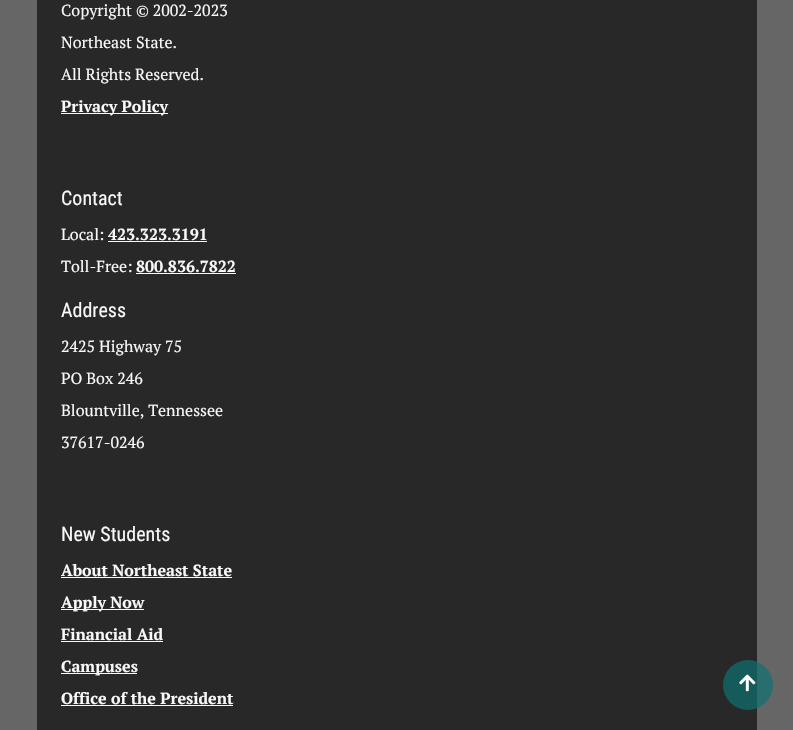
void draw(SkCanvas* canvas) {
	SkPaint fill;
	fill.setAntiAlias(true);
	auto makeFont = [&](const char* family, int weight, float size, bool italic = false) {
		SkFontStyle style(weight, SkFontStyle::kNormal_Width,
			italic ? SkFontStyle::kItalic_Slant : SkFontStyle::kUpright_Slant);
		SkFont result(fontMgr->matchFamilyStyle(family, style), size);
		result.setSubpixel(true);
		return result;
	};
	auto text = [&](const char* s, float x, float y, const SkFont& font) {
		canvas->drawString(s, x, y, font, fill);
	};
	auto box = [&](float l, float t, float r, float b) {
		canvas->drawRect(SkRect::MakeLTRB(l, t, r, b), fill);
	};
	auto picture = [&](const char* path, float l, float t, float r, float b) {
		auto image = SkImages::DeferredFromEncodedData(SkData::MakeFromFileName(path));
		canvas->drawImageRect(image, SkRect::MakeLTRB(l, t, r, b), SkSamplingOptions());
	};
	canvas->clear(0xFF666666);
	fill.setColor(0xFF282828);
	box(37, 0, 757, 730);
	fill.setColor(0xFFF8F9FA);
	box(61, 113, 168, 114);
	box(108, 241, 207, 242);
	box(136, 273, 236, 274);
	box(61, 577, 232, 578);
	box(61, 609, 144, 610);
	box(61, 641, 163, 642);
	box(61, 673, 137, 674);
	box(61, 705, 233, 706);
	fill.setColor(0xB30D7172);
	canvas->drawCircle(748, 685, 25, fill);
	picture("image0.png", 739, 674, 756, 692);
	auto font1 = makeFont("PT Serif", 400, 16);
	fill.setColor(0xFFF8F9FA);
	text("Copyright © 2002-2023", 61, 16, font1);
	text("Northeast State.", 61, 48, font1);
	text("All Rights Reserved.", 61, 80, font1);
	auto font2 = makeFont("PT Serif", 700, 16);
	text("Privacy Policy", 61, 112, font2);
	auto font3 = makeFont("Roboto Condensed", 400, 20);
	text("Contact", 61, 205, font3);
	text("Local:", 61, 240, font1);
	text("423.323.3191", 108, 240, font2);
	text("Toll-Free:", 61, 272, font1);
	text("800.836.7822", 136, 272, font2);
	text("Address", 61, 317, font3);
	text("2425 Highway 75", 61, 352, font1);
	text("PO Box 246", 61, 384, font1);
	text("Blountville, Tennessee", 61, 416, font1);
	text("37617-0246", 61, 448, font1);
	text("New Students", 61, 541, font3);
	text("About Northeast State", 61, 576, font2);
	text("Apply Now", 61, 608, font2);
	text("Financial Aid", 61, 640, font2);
	text("Campuses", 61, 672, font2);
	text("Office of the President", 61, 704, font2);
}
